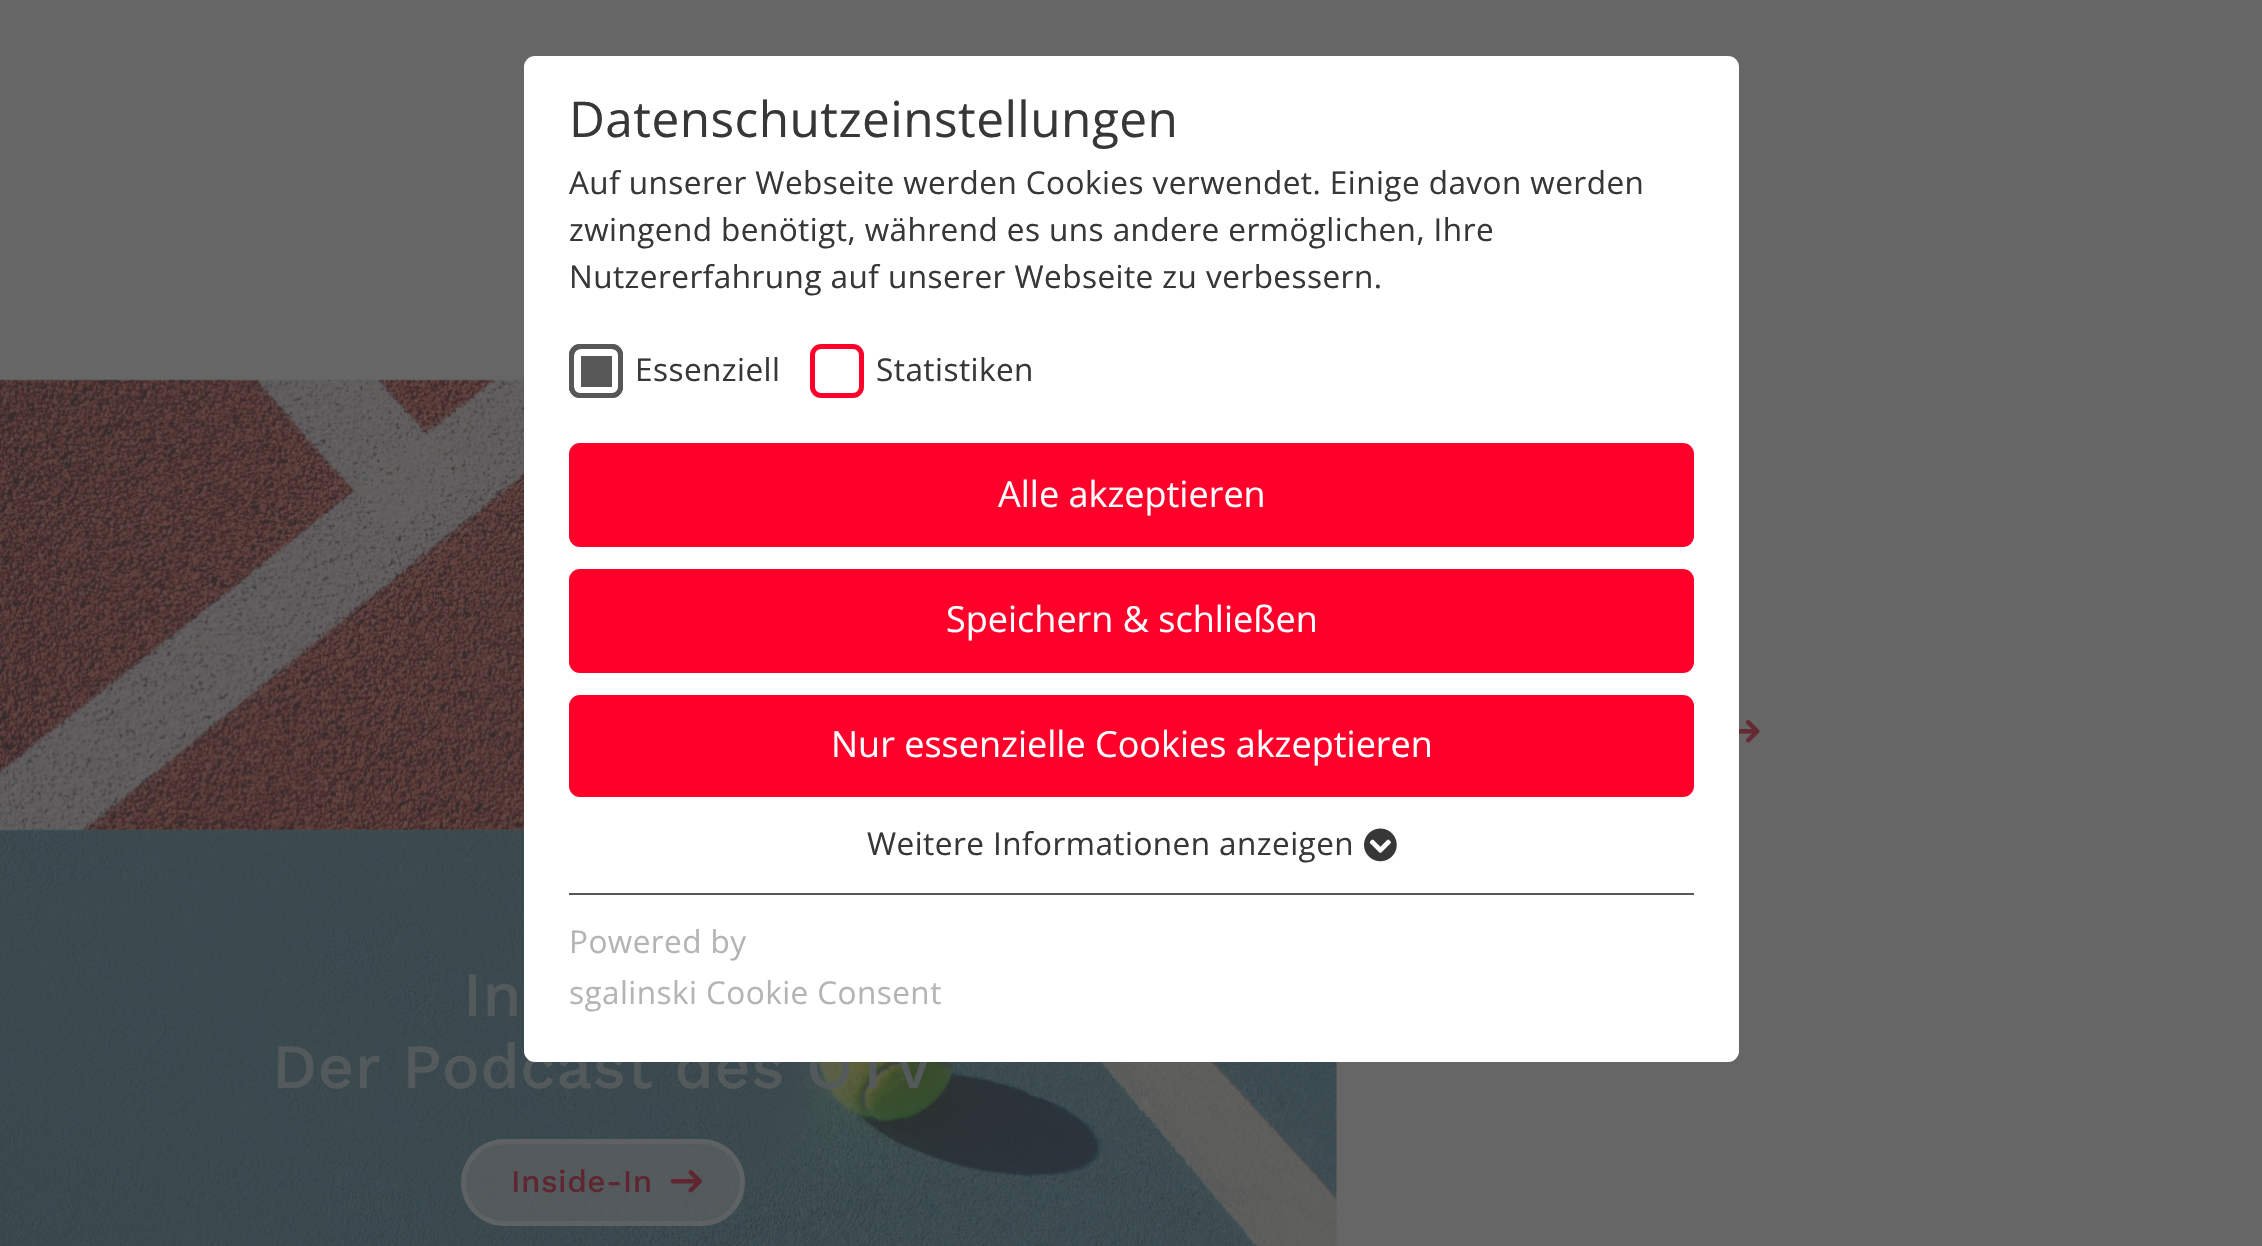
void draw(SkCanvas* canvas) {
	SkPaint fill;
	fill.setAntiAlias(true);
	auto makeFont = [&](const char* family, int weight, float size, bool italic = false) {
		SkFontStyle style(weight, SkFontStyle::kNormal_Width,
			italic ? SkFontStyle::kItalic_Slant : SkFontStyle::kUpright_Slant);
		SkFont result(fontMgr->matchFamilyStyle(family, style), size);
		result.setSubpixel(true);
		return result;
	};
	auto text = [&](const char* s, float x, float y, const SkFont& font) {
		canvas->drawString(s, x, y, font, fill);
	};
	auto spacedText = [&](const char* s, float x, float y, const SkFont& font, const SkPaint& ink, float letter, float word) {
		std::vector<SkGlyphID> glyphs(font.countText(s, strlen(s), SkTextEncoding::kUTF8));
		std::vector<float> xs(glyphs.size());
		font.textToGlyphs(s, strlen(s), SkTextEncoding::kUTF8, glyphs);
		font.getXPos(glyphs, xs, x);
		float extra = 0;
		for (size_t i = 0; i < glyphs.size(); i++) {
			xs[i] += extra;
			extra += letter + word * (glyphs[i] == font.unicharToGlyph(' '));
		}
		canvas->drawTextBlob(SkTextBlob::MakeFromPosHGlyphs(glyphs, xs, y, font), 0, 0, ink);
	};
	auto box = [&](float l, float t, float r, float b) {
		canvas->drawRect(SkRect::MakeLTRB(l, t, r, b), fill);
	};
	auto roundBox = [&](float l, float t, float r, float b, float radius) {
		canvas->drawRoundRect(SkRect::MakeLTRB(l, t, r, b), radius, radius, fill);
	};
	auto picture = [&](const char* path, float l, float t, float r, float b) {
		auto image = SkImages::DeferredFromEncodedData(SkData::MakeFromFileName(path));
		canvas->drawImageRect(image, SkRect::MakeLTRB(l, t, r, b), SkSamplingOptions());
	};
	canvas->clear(0xFF666666);
	picture("image1.png", 0, 379, 524, 831);
	picture("image2.png", 1739, 720, 1760, 743);
	picture("image3.png", 0, 829, 1337, 1246);
	fill.setColor(0x94666666);
	roundBox(461, 1139, 745, 1226, 43.5f);
	fill.setStyle(SkPaint::kStroke_Style);
	fill.setStrokeWidth(5);
	canvas->drawRoundRect(SkRect::MakeLTRB(463.5f, 1141.5f, 742.5f, 1223.5f), 41, 41, fill);
	picture("image4.png", 671, 1170, 702, 1193);
	auto font1 = makeFont("Work Sans", 500, 63);
	fill.setStyle(SkPaint::kFill_Style);
	fill.setColor(0xFF545A5C);
	spacedText("In", 463, 1016, font1, fill, 0.45f, 0);
	spacedText("Der Podcast des ÖTV", 272, 1088, font1, fill, 0.45f, 0);
	fill.setColor(0xFFFFFFFF);
	roundBox(524, 56, 1739, 1062, 11);
	picture("image0.png", 1364, 828, 1397, 862);
	auto font2 = makeFont("Open Sans", 400, 31.5f);
	fill.setColor(0xFFB4B4B4);
	spacedText("sgalinski Cookie Consent", 569, 1004, font2, fill, 0.45f, 0);
	spacedText("Powered by", 569, 953, font2, fill, 0.45f, 0);
	fill.setColor(0xFF373737);
	spacedText("Weitere Informationen anzeigen", 867, 855, font2, fill, 0.45f, 0);
	fill.setColor(0xFFFF002B);
	roundBox(569, 695, 1694, 797, 11);
	auto font3 = makeFont("Open Sans", 400, 36);
	fill.setColor(0xFFFFFFFF);
	text("Nur essenzielle Cookies akzeptieren", 831, 757, font3);
	fill.setColor(0xFFFF002B);
	roundBox(569, 569, 1694, 673, 11);
	fill.setColor(0xFFFFFFFF);
	text("Speichern & schließen", 946, 632, font3);
	fill.setColor(0xFFFF002B);
	roundBox(569, 443, 1694, 547, 11);
	fill.setColor(0xFFFFFFFF);
	text("Alle akzeptieren", 998, 507, font3);
	fill.setColor(0xFF373737);
	spacedText("Statistiken", 876, 381, font2, fill, 0.45f, 0);
	fill.setStyle(SkPaint::kStroke_Style);
	fill.setColor(0xFFFF002B);
	canvas->drawRoundRect(SkRect::MakeLTRB(812.5f, 346.5f, 861.5f, 395.5f), 8.5f, 8.5f, fill);
	fill.setStyle(SkPaint::kFill_Style);
	fill.setColor(0xFF373737);
	spacedText("Essenziell", 635, 381, font2, fill, 0.45f, 0);
	fill.setColor(0xFF575757);
	roundBox(569, 344, 623, 398, 11);
	fill.setStyle(SkPaint::kStroke_Style);
	fill.setStrokeWidth(7);
	fill.setColor(0xFFFFFFFF);
	canvas->drawRoundRect(SkRect::MakeLTRB(577.5f, 352.5f, 615.5f, 390.5f), 3.5f, 3.5f, fill);
	fill.setStrokeWidth(5);
	fill.setColor(0xFF575757);
	canvas->drawRoundRect(SkRect::MakeLTRB(571.5f, 346.5f, 620.5f, 395.5f), 8.5f, 8.5f, fill);
	fill.setStyle(SkPaint::kFill_Style);
	fill.setColor(0xFF373737);
	spacedText("Nutzererfahrung auf unserer Webseite zu verbessern.", 569, 288, font2, fill, 0.45f, 0);
	spacedText("zwingend benötigt, während es uns andere ermöglichen, Ihre", 569, 241, font2, fill, 0.45f, 0);
	spacedText("Auf unserer Webseite werden Cookies verwendet. Einige davon werden", 569, 194, font2, fill, 0.45f, 0);
	auto font4 = makeFont("Open Sans", 400, 49.5f);
	spacedText("Datenschutzeinstellungen", 569, 137, font4, fill, 0.45f, 0);
	fill.setColor(0xFF575757);
	box(569, 893, 1694, 895);
	auto font5 = makeFont("Work Sans", 500, 31.5f);
	fill.setColor(0xFF5E2630);
	spacedText("Inside-In", 511, 1192, font5, fill, 0.45f, 0);
}
